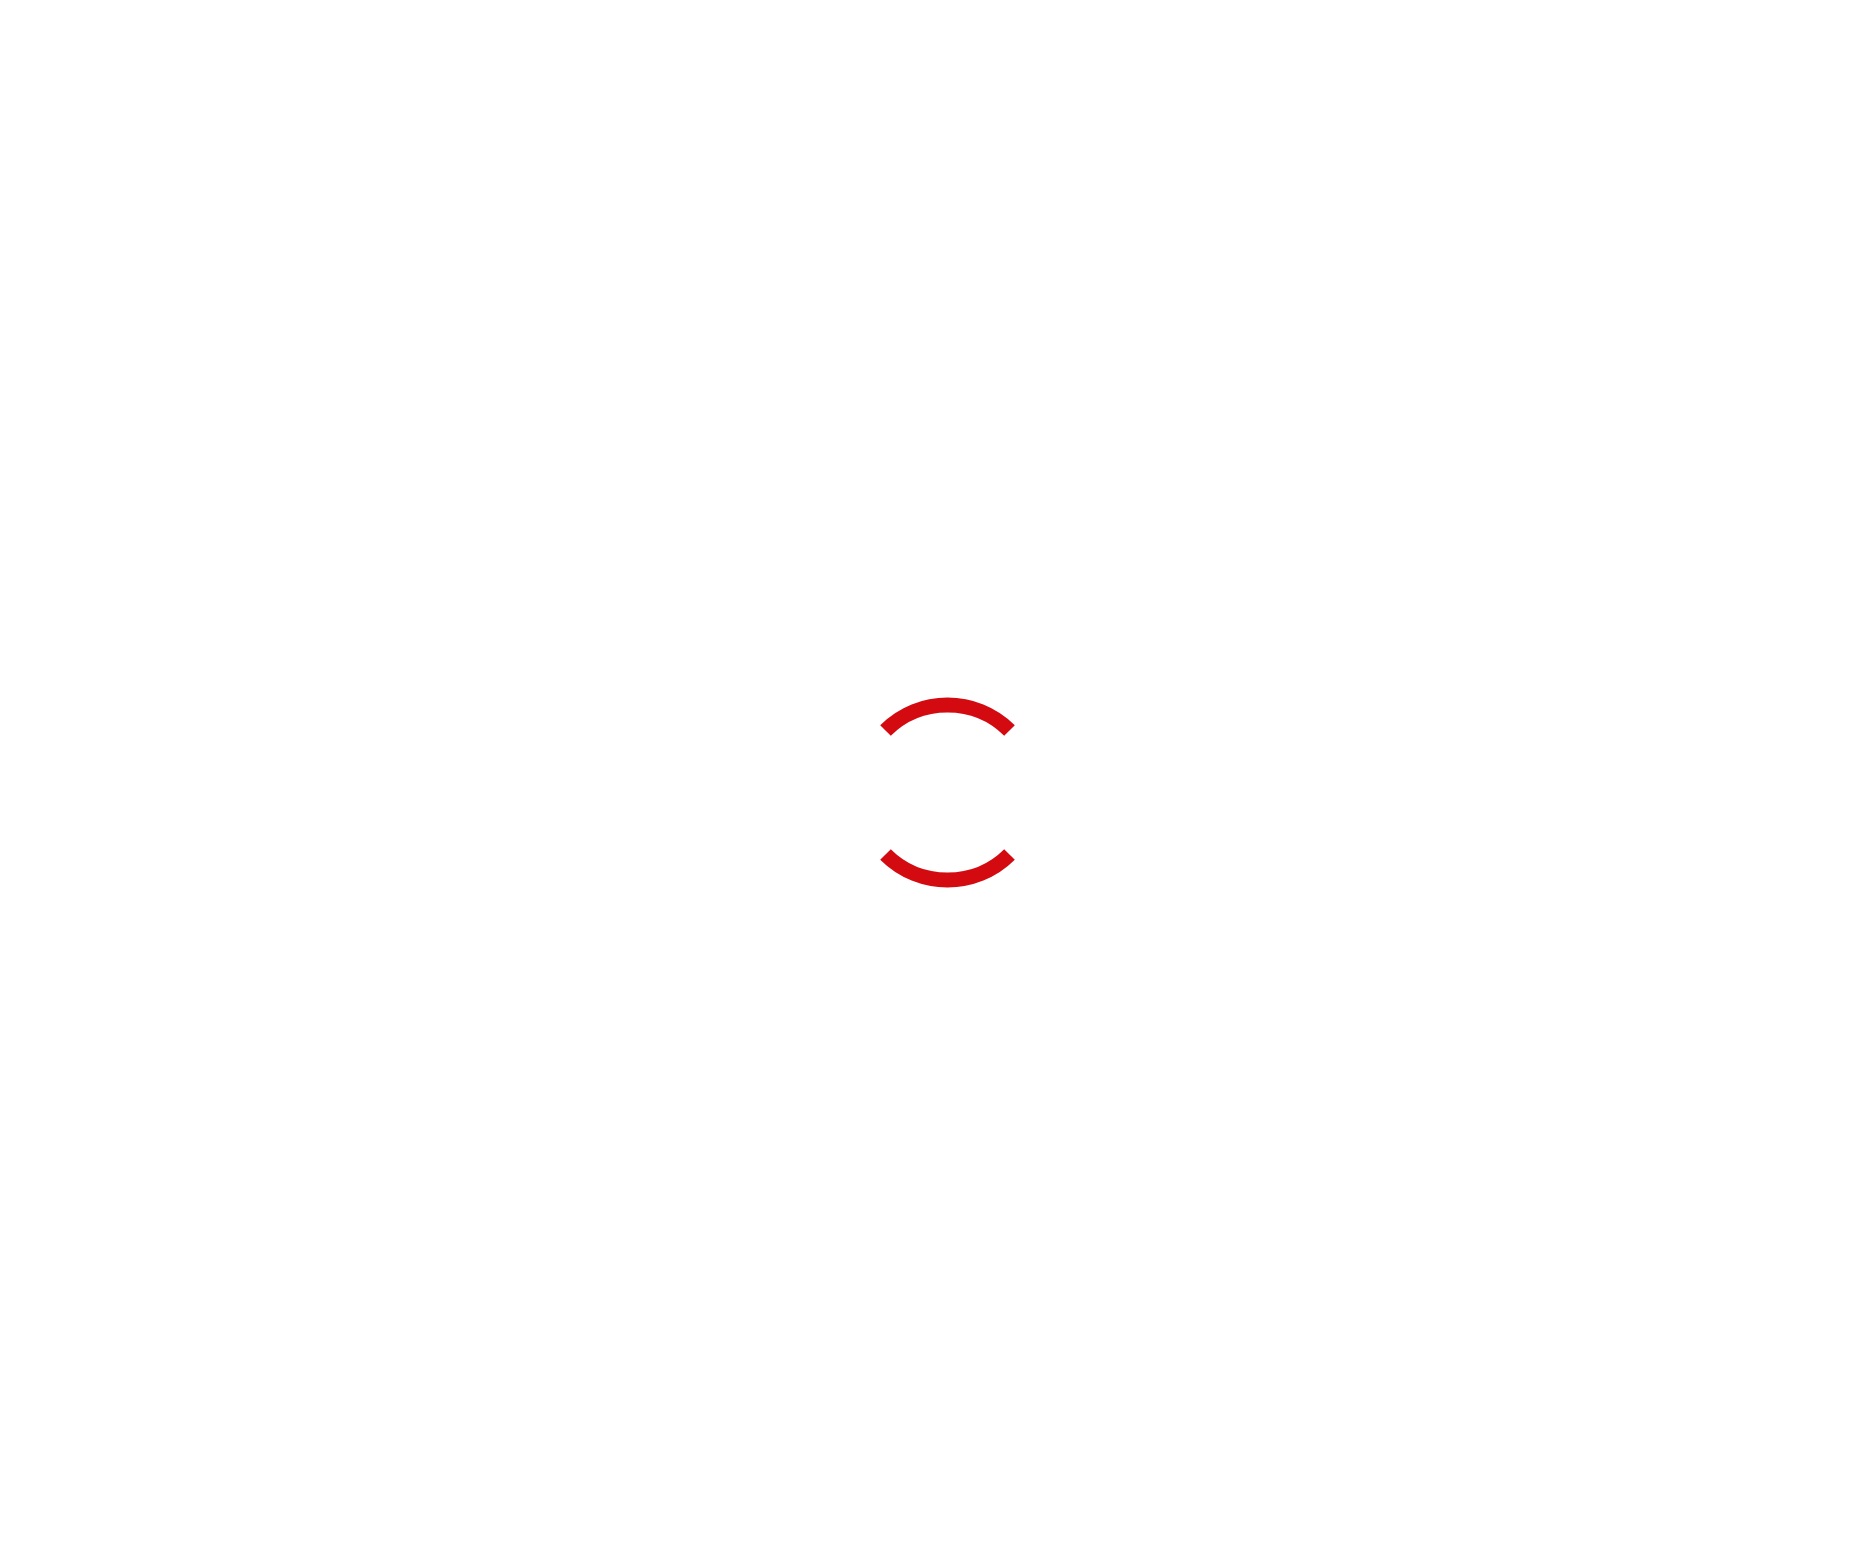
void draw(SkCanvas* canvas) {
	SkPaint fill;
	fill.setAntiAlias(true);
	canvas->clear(0xFFFFFFFF);
	fill.setStyle(SkPaint::kStroke_Style);
	fill.setStrokeWidth(15);
	fill.setColor(0xFFD40A11);
	canvas->drawPath(SkPathBuilder().moveTo(885.5f, 730.5f).cubicTo(919.5f, 696.5f, 975.5f, 696.5f, 1009.5f, 730.5f).detach(), fill);
	canvas->drawPath(SkPathBuilder().moveTo(1009.5f, 854.5f).cubicTo(975.5f, 888.5f, 919.5f, 888.5f, 885.5f, 854.5f).detach(), fill);
}
